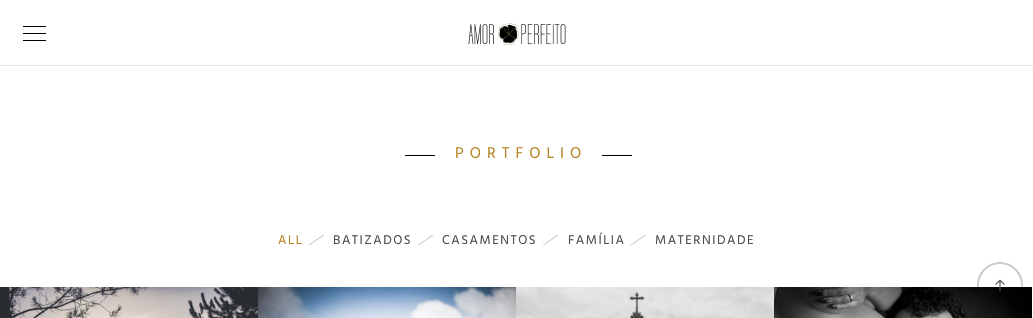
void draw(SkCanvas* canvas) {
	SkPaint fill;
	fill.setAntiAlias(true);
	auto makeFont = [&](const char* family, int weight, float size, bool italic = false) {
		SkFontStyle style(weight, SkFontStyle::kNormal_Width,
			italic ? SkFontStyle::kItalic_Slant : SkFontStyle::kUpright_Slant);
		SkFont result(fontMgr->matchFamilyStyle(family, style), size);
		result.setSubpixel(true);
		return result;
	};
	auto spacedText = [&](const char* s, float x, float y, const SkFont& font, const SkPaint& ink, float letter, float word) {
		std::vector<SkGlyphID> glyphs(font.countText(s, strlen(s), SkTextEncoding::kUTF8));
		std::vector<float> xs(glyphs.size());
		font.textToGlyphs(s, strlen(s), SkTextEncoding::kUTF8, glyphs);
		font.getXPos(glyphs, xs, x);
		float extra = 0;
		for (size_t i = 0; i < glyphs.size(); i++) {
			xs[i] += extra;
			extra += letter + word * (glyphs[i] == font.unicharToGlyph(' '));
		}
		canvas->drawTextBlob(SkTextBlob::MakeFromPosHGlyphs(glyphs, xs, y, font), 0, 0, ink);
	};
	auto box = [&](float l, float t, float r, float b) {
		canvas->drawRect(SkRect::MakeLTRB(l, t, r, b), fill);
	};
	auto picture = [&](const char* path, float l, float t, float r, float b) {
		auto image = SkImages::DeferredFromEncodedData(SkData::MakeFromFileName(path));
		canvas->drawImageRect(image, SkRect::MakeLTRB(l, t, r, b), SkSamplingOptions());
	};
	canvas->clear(0xFFFFFFFF);
	fill.setColor(0xFFE6E6E6);
	box(0, 65, 1033, 66);
	picture("image0.png", 468, 23, 566, 45);
	fill.setColor(0xFF000000);
	box(23, 33, 46, 34);
	box(23, 26, 46, 27);
	box(23, 40, 46, 41);
	box(405, 155, 435, 156);
	box(602, 155, 632, 156);
	fill.setColor(0xFFC5C3C3);
	canvas->drawPath(SkPathBuilder().moveTo(308.5f, 245).lineTo(323.5f, 234.5f).lineTo(324, 235.5f).lineTo(309, 245.5f).close().detach(), fill);
	canvas->drawPath(SkPathBuilder().moveTo(418, 245).lineTo(432.5f, 234.5f).lineTo(433, 235.5f).lineTo(418.5f, 245.5f).close().detach(), fill);
	canvas->drawPath(SkPathBuilder().moveTo(543, 245).lineTo(557.5f, 234.5f).lineTo(558, 235.5f).lineTo(543.5f, 245.5f).close().detach(), fill);
	canvas->drawPath(SkPathBuilder().moveTo(630.5f, 245).lineTo(645, 234.5f).lineTo(645.5f, 235.5f).lineTo(631, 245.5f).close().detach(), fill);
	picture("image1.png", 0, 287, 258, 318);
	picture("image2.png", 258, 287, 516, 318);
	picture("image3.png", 516, 287, 774, 318);
	picture("image4.png", 774, 287, 1032, 318);
	fill.setStyle(SkPaint::kStroke_Style);
	fill.setStrokeWidth(2);
	fill.setColor(0x33000000);
	canvas->drawCircle(1000, 285, 22, fill);
	picture("image5.png", 995, 279, 1005, 292);
	auto font1 = makeFont("Hind", 400, 16);
	fill.setStyle(SkPaint::kFill_Style);
	fill.setColor(0xFFB78426);
	spacedText("PORTFOLIO", 455, 158, font1, fill, 6, 0);
	auto font2 = makeFont("Hind", 400, 13);
	spacedText("ALL", 278, 244, font2, fill, 1.5f, 0);
	fill.setColor(0xFF4D4D4D);
	spacedText("BATIZADOS", 333, 244, font2, fill, 1.5f, 0);
	spacedText("CASAMENTOS", 442, 244, font2, fill, 1.5f, 0);
	spacedText("FAMÍLIA", 568, 244, font2, fill, 1.5f, 0);
	spacedText("MATERNIDADE", 655, 244, font2, fill, 1.5f, 0);
}
